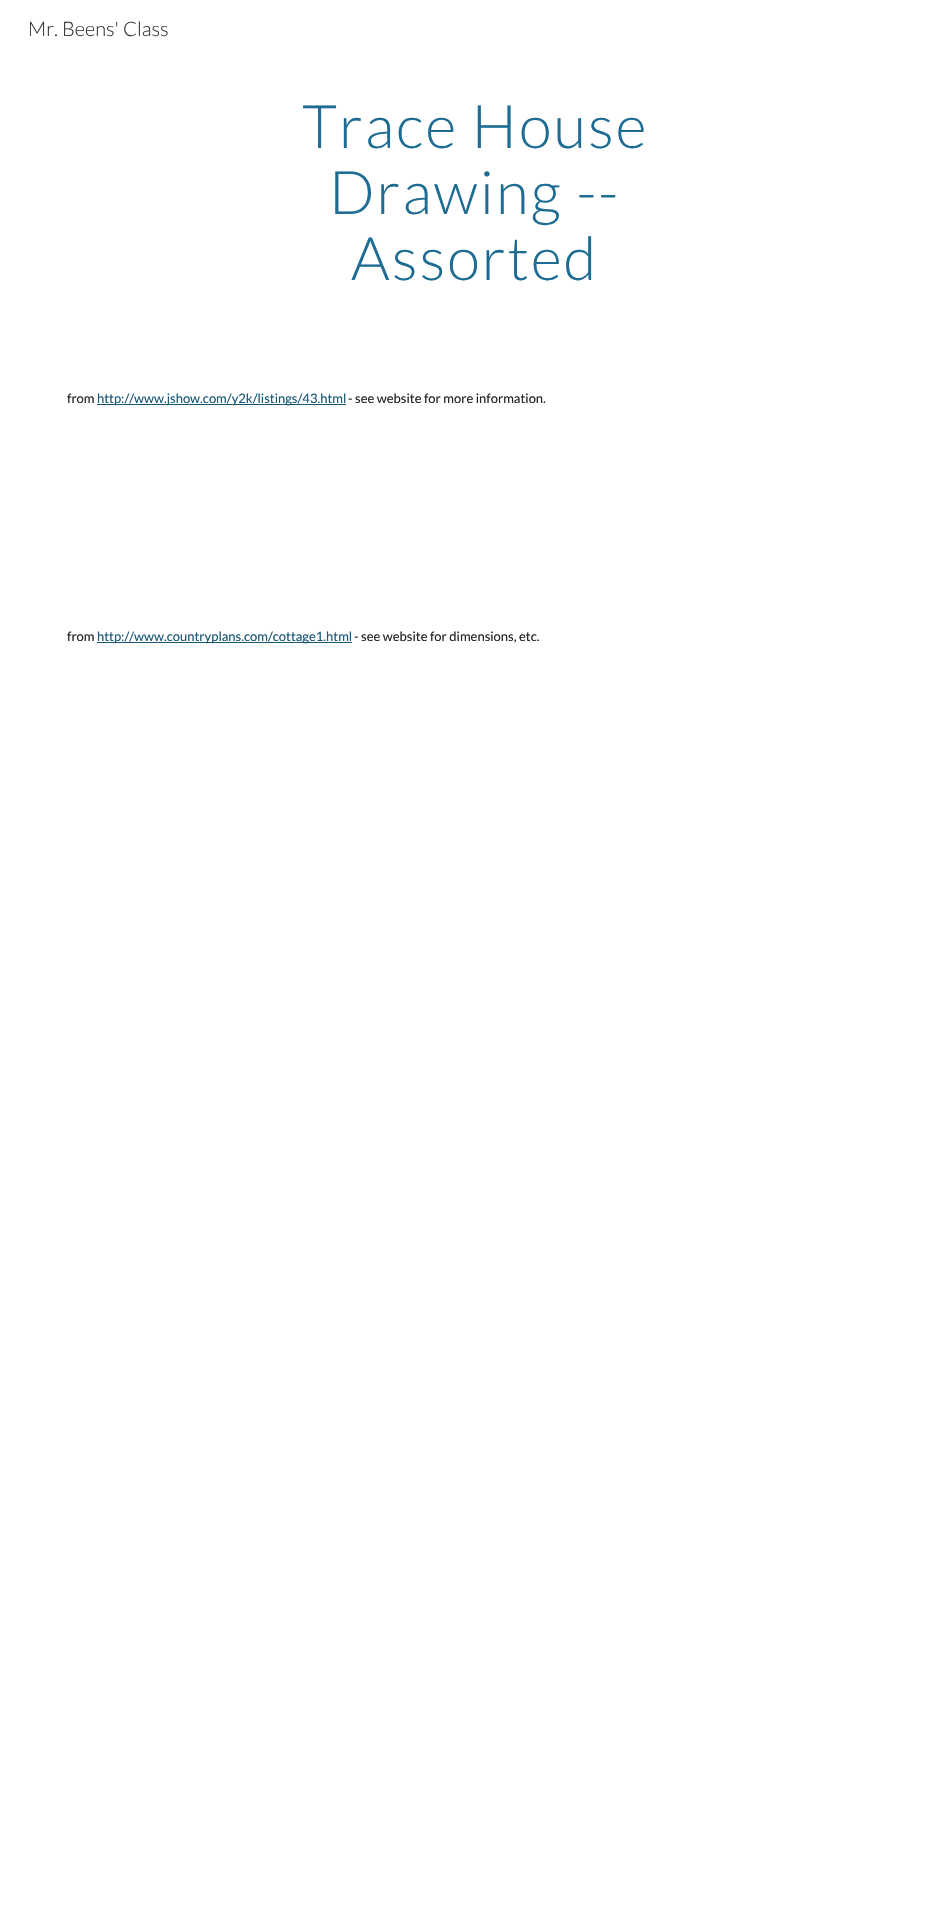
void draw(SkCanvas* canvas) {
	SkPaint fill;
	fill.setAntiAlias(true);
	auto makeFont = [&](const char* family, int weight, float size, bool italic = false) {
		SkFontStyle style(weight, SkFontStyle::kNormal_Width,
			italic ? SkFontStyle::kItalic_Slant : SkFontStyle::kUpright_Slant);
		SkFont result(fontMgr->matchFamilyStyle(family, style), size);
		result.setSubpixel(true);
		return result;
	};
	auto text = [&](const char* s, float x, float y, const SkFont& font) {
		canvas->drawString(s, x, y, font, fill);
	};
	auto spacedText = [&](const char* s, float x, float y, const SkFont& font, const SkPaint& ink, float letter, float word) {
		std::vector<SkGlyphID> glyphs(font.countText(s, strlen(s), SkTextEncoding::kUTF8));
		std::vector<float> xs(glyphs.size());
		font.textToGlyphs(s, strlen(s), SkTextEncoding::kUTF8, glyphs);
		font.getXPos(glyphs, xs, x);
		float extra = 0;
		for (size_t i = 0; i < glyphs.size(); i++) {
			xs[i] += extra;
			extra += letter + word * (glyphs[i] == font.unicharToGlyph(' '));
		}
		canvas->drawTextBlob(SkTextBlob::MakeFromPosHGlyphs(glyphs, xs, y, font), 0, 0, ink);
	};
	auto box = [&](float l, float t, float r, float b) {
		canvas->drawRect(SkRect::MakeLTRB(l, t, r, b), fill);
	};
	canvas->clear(0xFFFFFFFF);
	fill.setColor(0xFF185676);
	box(97, 404, 346, 405);
	box(97, 642, 352, 643);
	auto font1 = makeFont("Lato", 300, 20);
	fill.setColor(0xFF333333);
	text("Mr. Beens' Class", 28, 36, font1);
	auto font2 = makeFont("Lato", 300, 60);
	fill.setColor(0xFF1E6C93);
	spacedText("Trace House", 302, 148, font2, fill, 2, 0);
	spacedText("Drawing --", 329, 214, font2, fill, 2, 0);
	spacedText("Assorted", 351, 280, font2, fill, 2, 0);
	auto font3 = makeFont("Lato", 400, 13);
	fill.setColor(0xFF212121);
	text("from", 67, 403, font3);
	fill.setColor(0xFF185676);
	text("http://www.jshow.com/y2k/listings/43.html", 97, 403, font3);
	fill.setColor(0xFF212121);
	text("- see website for more information.", 348, 403, font3);
	text("from", 67, 641, font3);
	fill.setColor(0xFF185676);
	text("http://www.countryplans.com/cottage1.html", 97, 641, font3);
	fill.setColor(0xFF212121);
	text("- see website for dimensions, etc.", 354, 641, font3);
}
